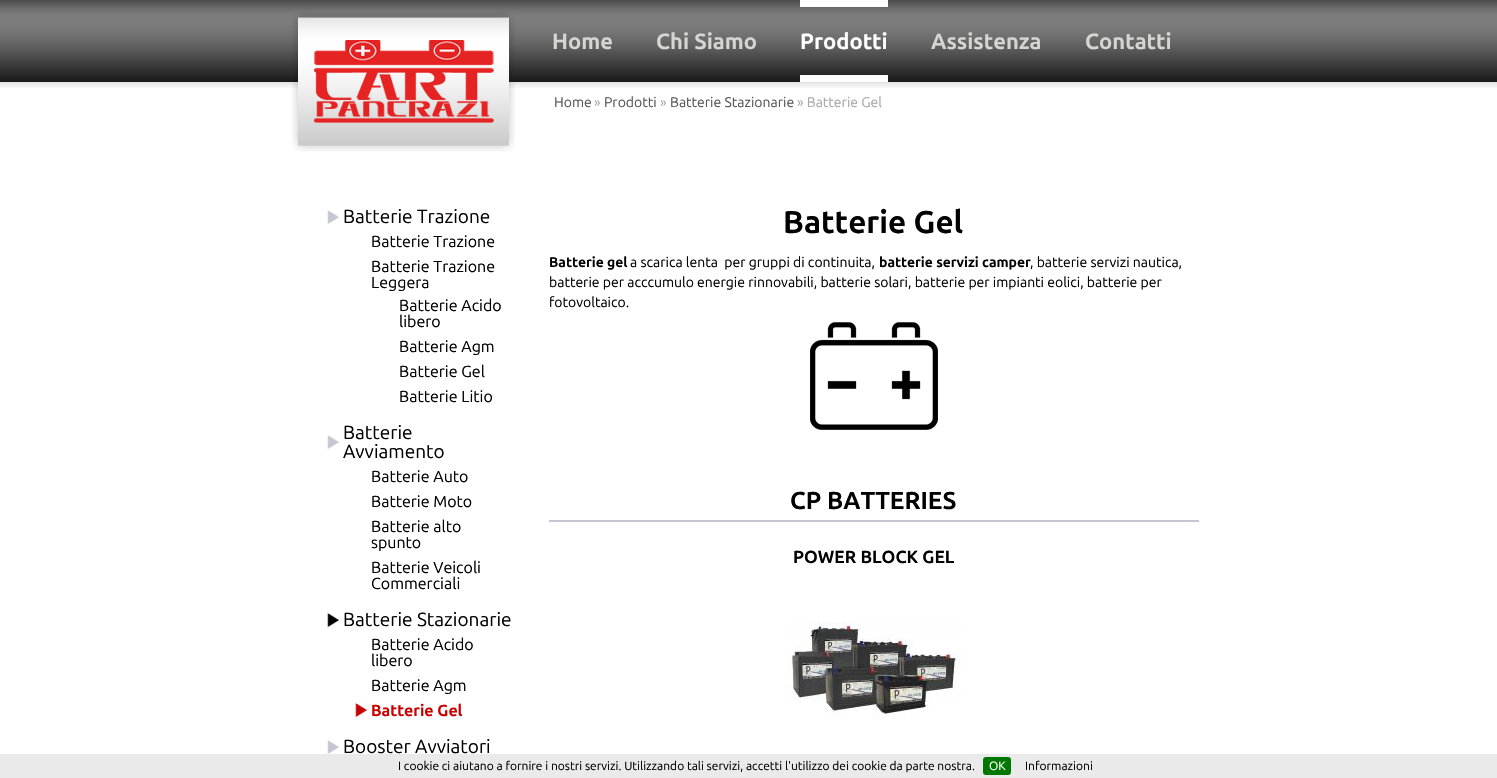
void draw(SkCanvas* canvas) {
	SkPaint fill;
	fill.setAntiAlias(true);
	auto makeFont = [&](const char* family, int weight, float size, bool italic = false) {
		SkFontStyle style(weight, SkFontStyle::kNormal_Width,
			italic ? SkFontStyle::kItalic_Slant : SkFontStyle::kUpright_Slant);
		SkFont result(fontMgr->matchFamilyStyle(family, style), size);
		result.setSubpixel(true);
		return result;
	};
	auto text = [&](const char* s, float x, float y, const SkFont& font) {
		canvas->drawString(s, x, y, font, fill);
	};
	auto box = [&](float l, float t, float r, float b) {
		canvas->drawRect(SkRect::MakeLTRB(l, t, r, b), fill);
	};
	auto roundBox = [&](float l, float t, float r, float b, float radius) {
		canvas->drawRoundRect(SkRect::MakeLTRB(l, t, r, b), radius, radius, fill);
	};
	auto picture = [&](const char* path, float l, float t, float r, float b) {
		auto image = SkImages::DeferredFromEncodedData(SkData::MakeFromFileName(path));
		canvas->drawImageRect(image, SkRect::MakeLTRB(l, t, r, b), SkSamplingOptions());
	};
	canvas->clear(0xFFFFFFFF);
	picture("image0.png", 0, 0, 1497, 88);
	picture("image1.png", 292, 12, 515, 152);
	fill.setColor(0xFFFFFFFF);
	box(800, 0, 888, 7);
	box(800, 75, 888, 82);
	picture("image2.png", 327, 210, 339, 224);
	picture("image2.png", 327, 435, 339, 449);
	picture("image3.png", 327, 613, 339, 627);
	picture("image4.png", 355, 703, 367, 717);
	picture("image2.png", 327, 740, 339, 754);
	picture("image5.png", 810, 322, 938, 430);
	fill.setColor(0xFFC5C6D1);
	box(549, 520, 1199, 522);
	picture("image6.png", 786, 622, 961, 718);
	fill.setColor(0xFFEAEAEA);
	box(0, 754, 1497, 778);
	fill.setColor(0xFF007700);
	roundBox(983, 757, 1011, 775, 3);
	auto font1 = makeFont("Ubuntu", 700, 22);
	fill.setColor(0xFFD5D5D4);
	text("Home", 552, 49, font1);
	text("Chi Siamo", 656, 49, font1);
	fill.setColor(0xFFFFFFFF);
	text("Prodotti", 800, 49, font1);
	fill.setColor(0xFFD5D5D4);
	text("Assistenza", 931, 49, font1);
	text("Contatti", 1085, 49, font1);
	auto font2 = makeFont("Ubuntu", 400, 14);
	fill.setColor(0xFF555555);
	text("Home", 554, 107, font2);
	fill.setColor(0xFFA8A6A6);
	text("»", 594, 107, font2);
	fill.setColor(0xFF555555);
	text("Prodotti", 604, 107, font2);
	fill.setColor(0xFFA8A6A6);
	text("»", 660, 107, font2);
	fill.setColor(0xFF555555);
	text("Batterie Stazionarie", 670, 107, font2);
	fill.setColor(0xFFA8A6A6);
	text("» Batterie Gel", 797, 107, font2);
	auto font3 = makeFont("Ubuntu", 400, 19);
	fill.setColor(0xFF000000);
	text("Batterie Trazione", 343, 223, font3);
	auto font4 = makeFont("Ubuntu", 400, 16);
	text("Batterie Trazione", 371, 247, font4);
	text("Batterie Trazione", 371, 272, font4);
	text("Leggera", 371, 288, font4);
	text("Batterie Acido", 399, 311, font4);
	text("libero", 399, 327, font4);
	text("Batterie Agm", 399, 352, font4);
	text("Batterie Gel", 399, 377, font4);
	text("Batterie Litio", 399, 402, font4);
	text("Batterie", 343, 439, font3);
	text("Avviamento", 343, 458, font3);
	text("Batterie Auto", 371, 482, font4);
	text("Batterie Moto", 371, 507, font4);
	text("Batterie alto", 371, 532, font4);
	text("spunto", 371, 548, font4);
	text("Batterie Veicoli", 371, 573, font4);
	text("Commerciali", 371, 589, font4);
	text("Batterie Stazionarie", 343, 626, font3);
	text("Batterie Acido", 371, 650, font4);
	text("libero", 371, 666, font4);
	text("Batterie Agm", 371, 691, font4);
	auto font5 = makeFont("Ubuntu", 700, 16);
	fill.setColor(0xFFC90000);
	text("Batterie Gel", 371, 716, font5);
	fill.setColor(0xFF000000);
	text("Booster Avviatori", 343, 753, font3);
	auto font6 = makeFont("Ubuntu", 700, 31.5f);
	text("Batterie Gel", 783, 233, font6);
	auto font7 = makeFont("Ubuntu", 700, 14);
	text("Batterie gel", 549, 267, font7);
	text("a scarica lenta  per gruppi di continuita,", 630, 267, font2);
	text("batterie servizi camper", 879, 267, font7);
	text(", batterie servizi nautica,", 1030, 267, font2);
	text("batterie per acccumulo energie rinnovabili, batterie solari, batterie per impianti eolici, batterie per", 549, 287, font2);
	text("fotovoltaico.", 549, 307, font2);
	auto font8 = makeFont("Ubuntu", 700, 24.5f);
	text("CP BATTERIES", 790, 509, font8);
	auto font9 = makeFont("Ubuntu", 700, 17.5f);
	text("POWER BLOCK GEL", 793, 563, font9);
	auto font10 = makeFont("Ubuntu", 400, 12);
	text("I cookie ci aiutano a fornire i nostri servizi. Utilizzando tali servizi, accetti l'utilizzo dei cookie da parte nostra.", 398, 770, font10);
	fill.setColor(0xFFFFFFFF);
	text("OK", 989, 770, font10);
	fill.setColor(0xFF000000);
	text("Informazioni", 1025, 770, font10);
}
